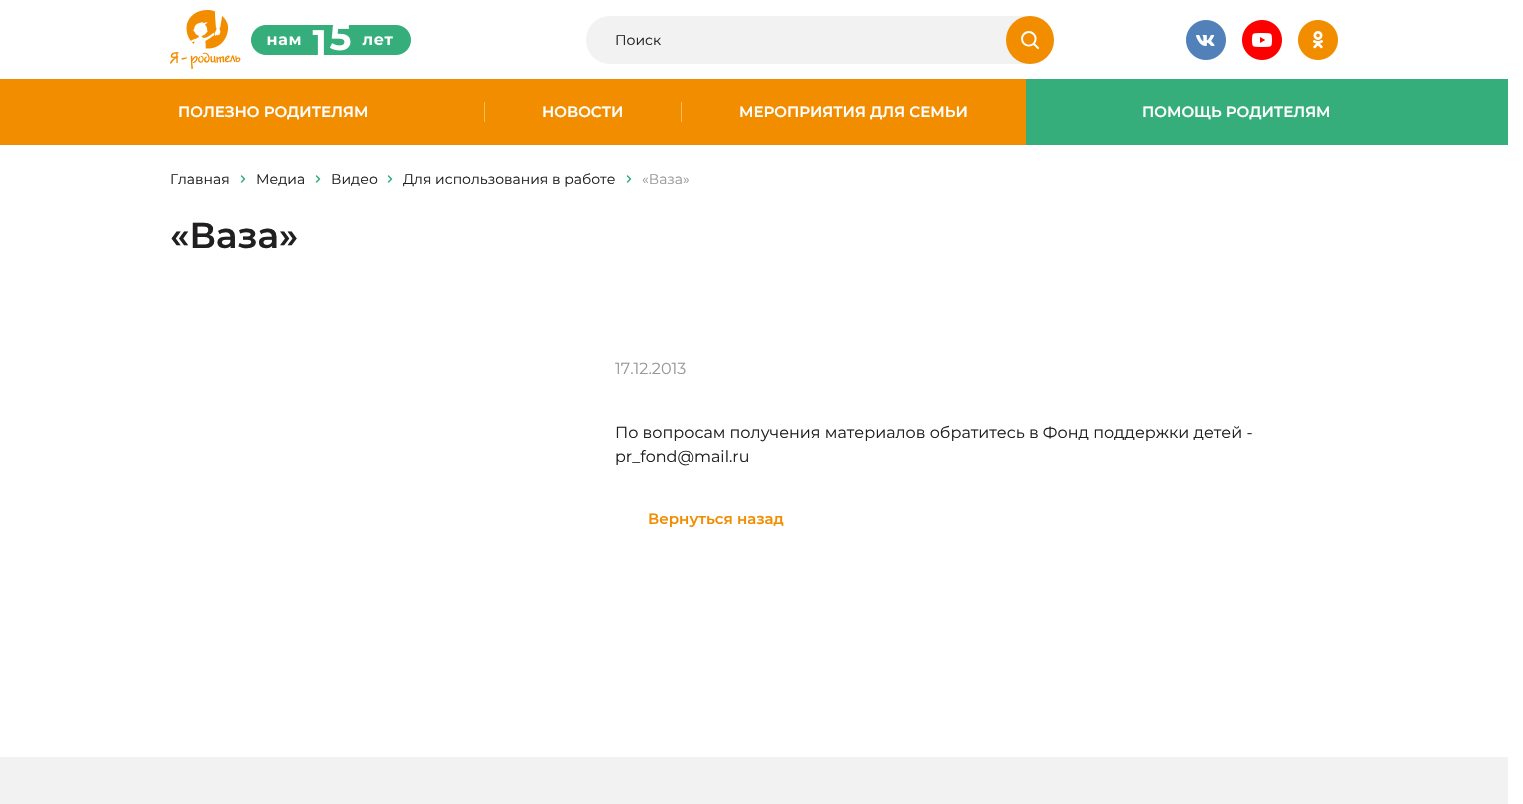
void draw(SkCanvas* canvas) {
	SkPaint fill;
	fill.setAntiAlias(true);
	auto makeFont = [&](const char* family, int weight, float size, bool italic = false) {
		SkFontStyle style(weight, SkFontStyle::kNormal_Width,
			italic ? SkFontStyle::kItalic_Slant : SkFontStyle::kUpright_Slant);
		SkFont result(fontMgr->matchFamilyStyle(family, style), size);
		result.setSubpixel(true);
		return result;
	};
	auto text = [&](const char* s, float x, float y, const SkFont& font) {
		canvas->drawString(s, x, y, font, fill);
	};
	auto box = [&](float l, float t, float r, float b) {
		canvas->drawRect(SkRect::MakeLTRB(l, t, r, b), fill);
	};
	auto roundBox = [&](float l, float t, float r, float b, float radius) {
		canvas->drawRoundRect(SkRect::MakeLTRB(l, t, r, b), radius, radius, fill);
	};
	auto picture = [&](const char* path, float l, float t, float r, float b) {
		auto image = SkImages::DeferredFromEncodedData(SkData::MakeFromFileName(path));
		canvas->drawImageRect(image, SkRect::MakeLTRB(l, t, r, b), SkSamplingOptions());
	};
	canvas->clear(0xFFFFFFFF);
	picture("image0.png", 170, 10, 241, 69);
	picture("image1.png", 251, 25, 411, 55);
	fill.setColor(0xFFF2F2F2);
	roundBox(586, 16, 1054, 64, 24);
	fill.setColor(0xFFF28D00);
	canvas->drawCircle(1030, 40, 24, fill);
	picture("image2.png", 1021, 31, 1040, 50);
	picture("image3.png", 1186, 20, 1226, 60);
	picture("image4.png", 1242, 20, 1282, 60);
	picture("image5.png", 1298, 20, 1338, 60);
	box(0, 79, 1026, 145);
	fill.setColor(0xFFF7BB66);
	box(484, 102, 485, 122);
	box(681, 102, 682, 122);
	fill.setColor(0xFF36AE7B);
	box(1026, 79, 1508, 145);
	picture("image6.png", 240, 175, 246, 183);
	picture("image6.png", 315, 175, 321, 183);
	picture("image6.png", 387, 175, 393, 183);
	picture("image6.png", 626, 175, 632, 183);
	fill.setColor(0xFFF2F2F2);
	box(0, 757, 1508, 804);
	auto font1 = makeFont("Montserrat", 400, 14);
	fill.setColor(0xFF211F1F);
	text("Поиск", 615, 45, font1);
	auto font2 = makeFont("Montserrat", 600, 15);
	fill.setColor(0xFFFFFFFF);
	text("ПОЛЕЗНО РОДИТЕЛЯМ", 178, 117, font2);
	text("НОВОСТИ", 542, 117, font2);
	text("МЕРОПРИЯТИЯ ДЛЯ СЕМЬИ", 739, 117, font2);
	text("ПОМОЩЬ РОДИТЕЛЯМ", 1142, 117, font2);
	fill.setColor(0xFF211F1F);
	text("Главная", 170, 184, font1);
	text("Медиа", 256, 184, font1);
	text("Видео", 331, 184, font1);
	text("Для использования в работе", 403, 184, font1);
	fill.setColor(0xFF999999);
	text("«Ваза»", 642, 184, font1);
	auto font3 = makeFont("Montserrat", 600, 36);
	fill.setColor(0xFF211F1F);
	text("«Ваза»", 170, 248, font3);
	auto font4 = makeFont("Montserrat", 400, 16);
	fill.setColor(0xFF999999);
	text("17.12.2013", 615, 374, font4);
	fill.setColor(0xFF211F1F);
	text("По вопросам получения материалов обратитесь в Фонд поддержки детей -", 615, 438, font4);
	text("pr_fond@mail.ru", 615, 462, font4);
	fill.setColor(0xFFF28D00);
	text("Вернуться назад", 648, 524, font2);
}
